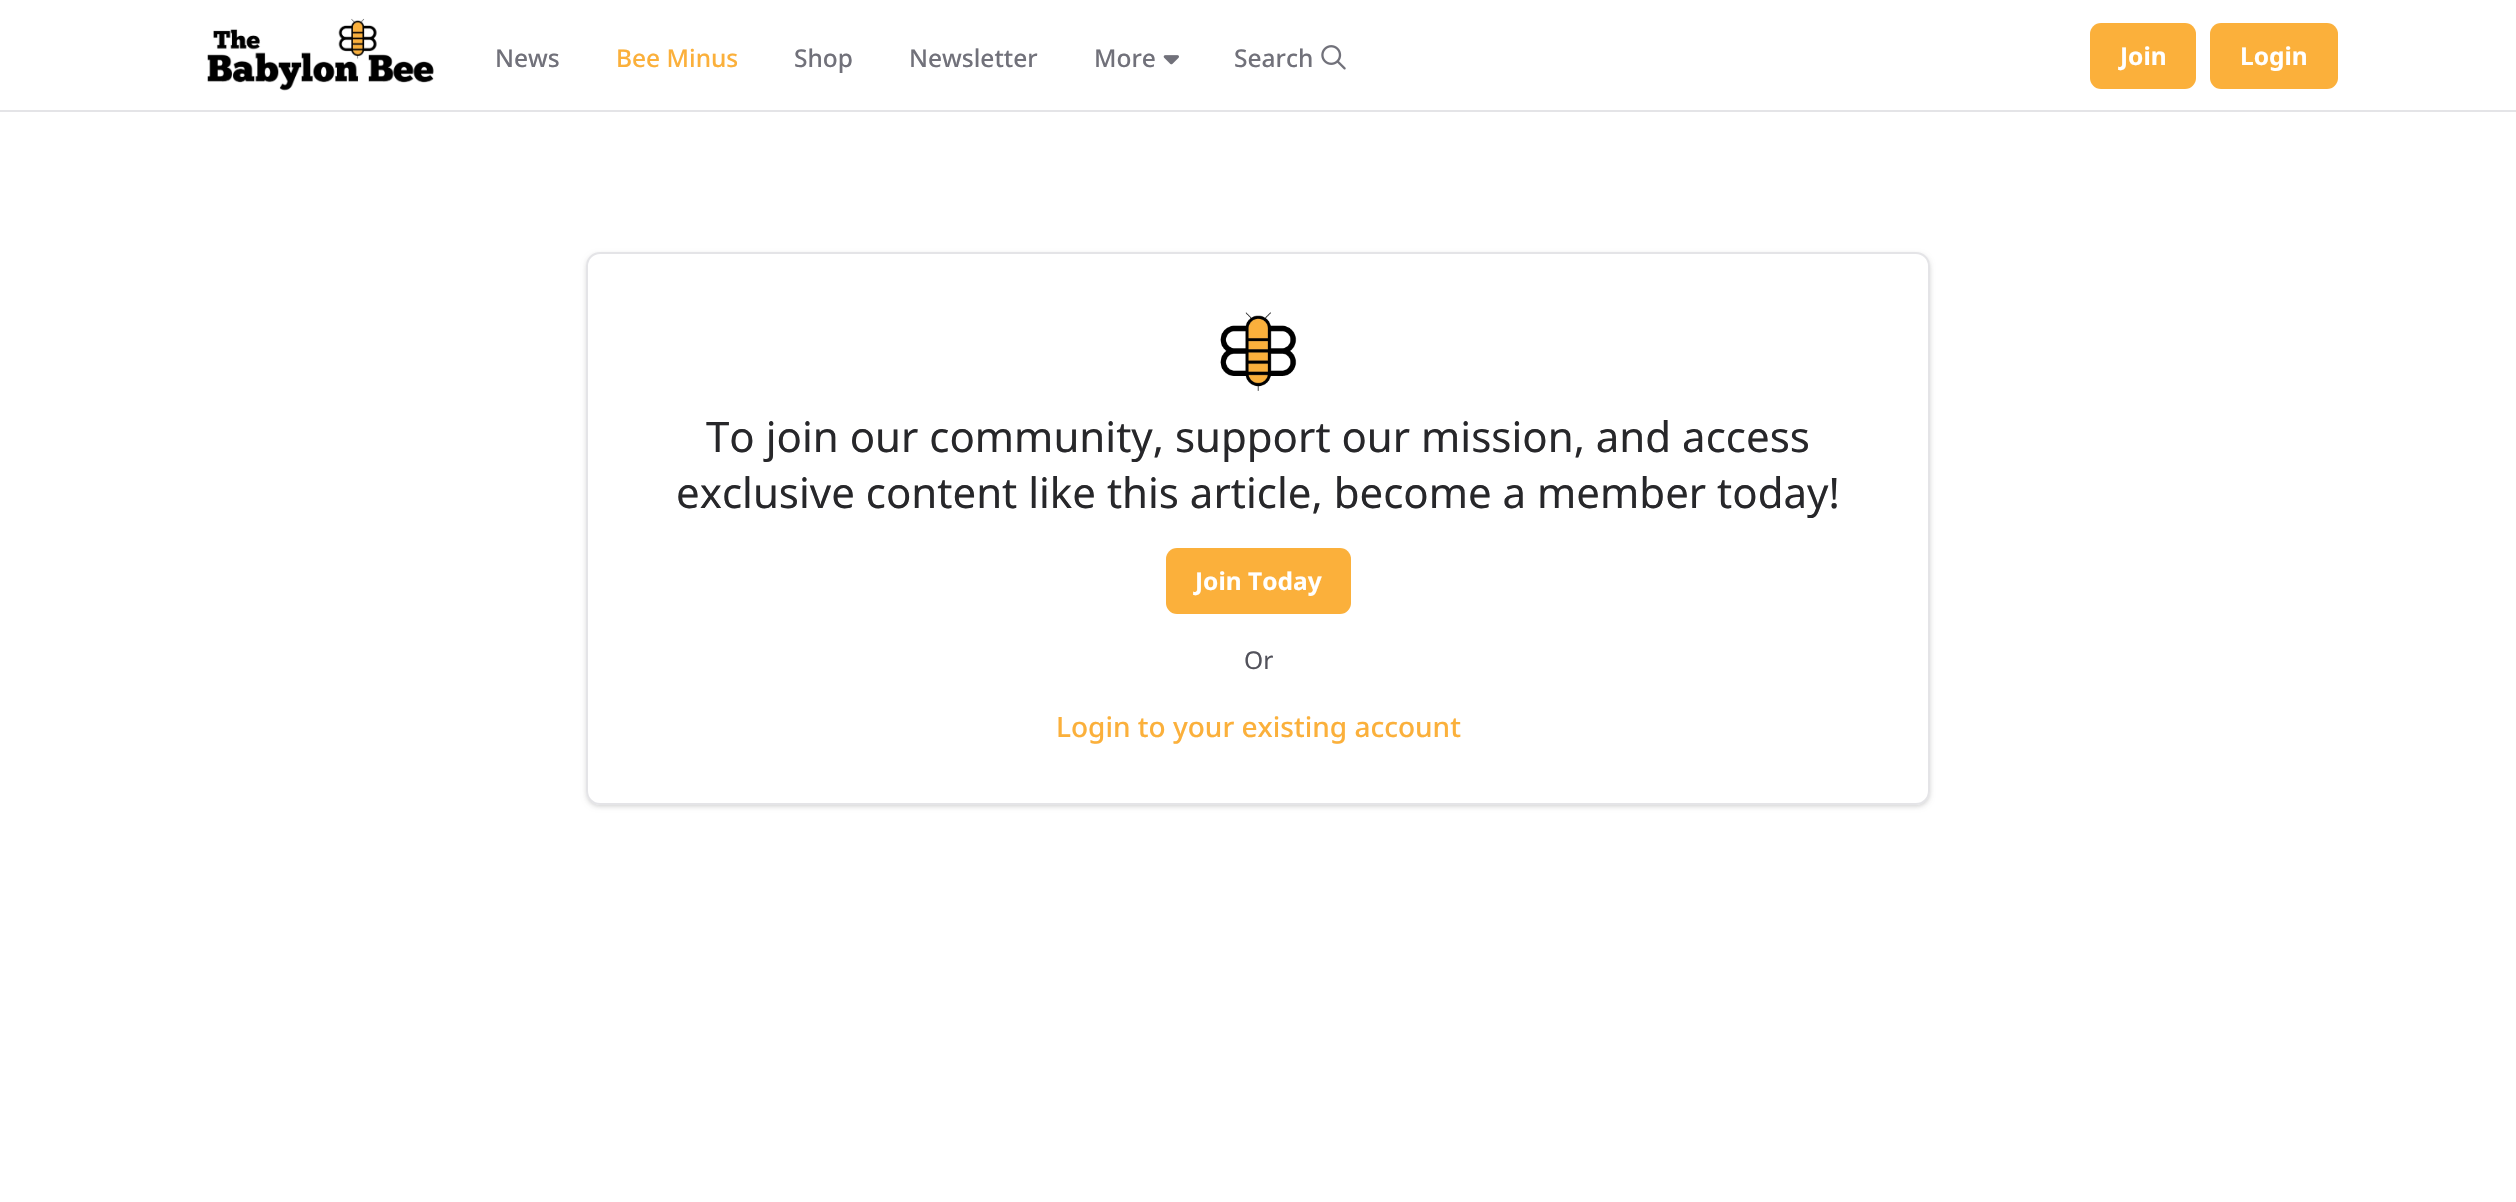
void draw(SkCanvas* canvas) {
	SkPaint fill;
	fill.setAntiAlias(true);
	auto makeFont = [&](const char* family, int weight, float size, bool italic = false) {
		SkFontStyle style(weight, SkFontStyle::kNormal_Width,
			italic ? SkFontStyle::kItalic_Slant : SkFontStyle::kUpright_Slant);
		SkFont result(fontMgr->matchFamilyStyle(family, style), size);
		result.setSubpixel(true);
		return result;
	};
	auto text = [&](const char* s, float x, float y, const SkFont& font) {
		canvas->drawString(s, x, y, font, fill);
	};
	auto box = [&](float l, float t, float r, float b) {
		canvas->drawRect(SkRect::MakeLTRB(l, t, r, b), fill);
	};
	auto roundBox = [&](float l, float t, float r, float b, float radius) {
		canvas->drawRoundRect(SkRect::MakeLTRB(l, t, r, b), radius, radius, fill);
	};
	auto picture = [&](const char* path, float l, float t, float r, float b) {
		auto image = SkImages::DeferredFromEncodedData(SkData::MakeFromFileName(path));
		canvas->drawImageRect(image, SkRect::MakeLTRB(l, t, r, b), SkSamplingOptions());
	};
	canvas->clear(0xFFFFFFFF);
	fill.setColor(0xFFE4E4E7);
	box(0, 110, 2516, 112);
	picture("image0.png", 207, 18, 434, 91);
	picture("image1.png", 1163, 55, 1179, 65);
	picture("image2.png", 1321, 45, 1346, 70);
	fill.setColor(0xFFFBB03B);
	roundBox(2090, 23, 2196, 89, 11);
	roundBox(2210, 23, 2338, 89, 11);
	canvas->save();
	canvas->clipPath(SkPathBuilder(SkPathFillType::kEvenOdd).moveTo(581, 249).lineTo(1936, 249).lineTo(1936, 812).lineTo(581, 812).close().moveTo(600, 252).lineTo(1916, 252).cubicTo(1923.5f, 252, 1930, 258.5f, 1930, 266).lineTo(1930, 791).cubicTo(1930, 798.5f, 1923.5f, 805, 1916, 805).lineTo(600, 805).cubicTo(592.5f, 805, 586, 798.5f, 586, 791).lineTo(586, 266).cubicTo(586, 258.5f, 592.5f, 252, 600, 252).close().detach(), true);
	fill.setColor(0x1A000000);
	fill.setMaskFilter(SkMaskFilter::MakeBlur(kNormal_SkBlurStyle, 2));
	canvas->drawRoundRect(SkRect::MakeLTRB(588, 256, 1929, 805), 12, 12, fill);
	fill.setMaskFilter(nullptr);
	canvas->restore();
	canvas->save();
	canvas->clipPath(SkPathBuilder(SkPathFillType::kEvenOdd).moveTo(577, 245).lineTo(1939, 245).lineTo(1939, 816).lineTo(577, 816).close().moveTo(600, 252).lineTo(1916, 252).cubicTo(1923.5f, 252, 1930, 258.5f, 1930, 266).lineTo(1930, 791).cubicTo(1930, 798.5f, 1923.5f, 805, 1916, 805).lineTo(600, 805).cubicTo(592.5f, 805, 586, 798.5f, 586, 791).lineTo(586, 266).cubicTo(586, 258.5f, 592.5f, 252, 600, 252).close().detach(), true);
	fill.setMaskFilter(SkMaskFilter::MakeBlur(kNormal_SkBlurStyle, 2.5f));
	canvas->drawRoundRect(SkRect::MakeLTRB(586, 254, 1930, 807), 14, 14, fill);
	fill.setMaskFilter(nullptr);
	canvas->restore();
	fill.setStyle(SkPaint::kStroke_Style);
	fill.setStrokeWidth(2);
	fill.setColor(0xFFE4E4E7);
	canvas->drawRoundRect(SkRect::MakeLTRB(587, 253, 1929, 804), 13, 13, fill);
	picture("image3.png", 1220, 312, 1297, 391);
	fill.setStyle(SkPaint::kFill_Style);
	fill.setColor(0xFFFBB03B);
	roundBox(1166, 548, 1351, 614, 11);
	auto font1 = makeFont("Noto Sans", 500, 24.5f);
	fill.setColor(0xFF71717A);
	text("News", 495, 67, font1);
	fill.setColor(0xFFFBB03B);
	text("Bee Minus", 616, 67, font1);
	fill.setColor(0xFF71717A);
	text("Shop", 794, 67, font1);
	text("Newsletter", 909, 67, font1);
	text("More", 1094, 67, font1);
	text("Search", 1234, 67, font1);
	auto font2 = makeFont("Noto Sans", 700, 24.5f);
	fill.setColor(0xFFFFFFFF);
	text("Join", 2120, 65, font2);
	text("Login", 2240, 65, font2);
	auto font3 = makeFont("Noto Sans", 400, 42);
	fill.setColor(0xFF27272A);
	text("To join our community, support our mission, and access", 706, 452, font3);
	text("exclusive content like this article, become a member today!", 676, 508, font3);
	fill.setColor(0xFFFFFFFF);
	text("Join Today", 1195, 590, font2);
	auto font4 = makeFont("Noto Sans", 400, 24.5f);
	fill.setColor(0xFF52525B);
	text("Or", 1244, 669, font4);
	auto font5 = makeFont("Noto Sans", 500, 28);
	fill.setColor(0xFFFBB03B);
	text("Login to your existing account", 1056, 737, font5);
}
